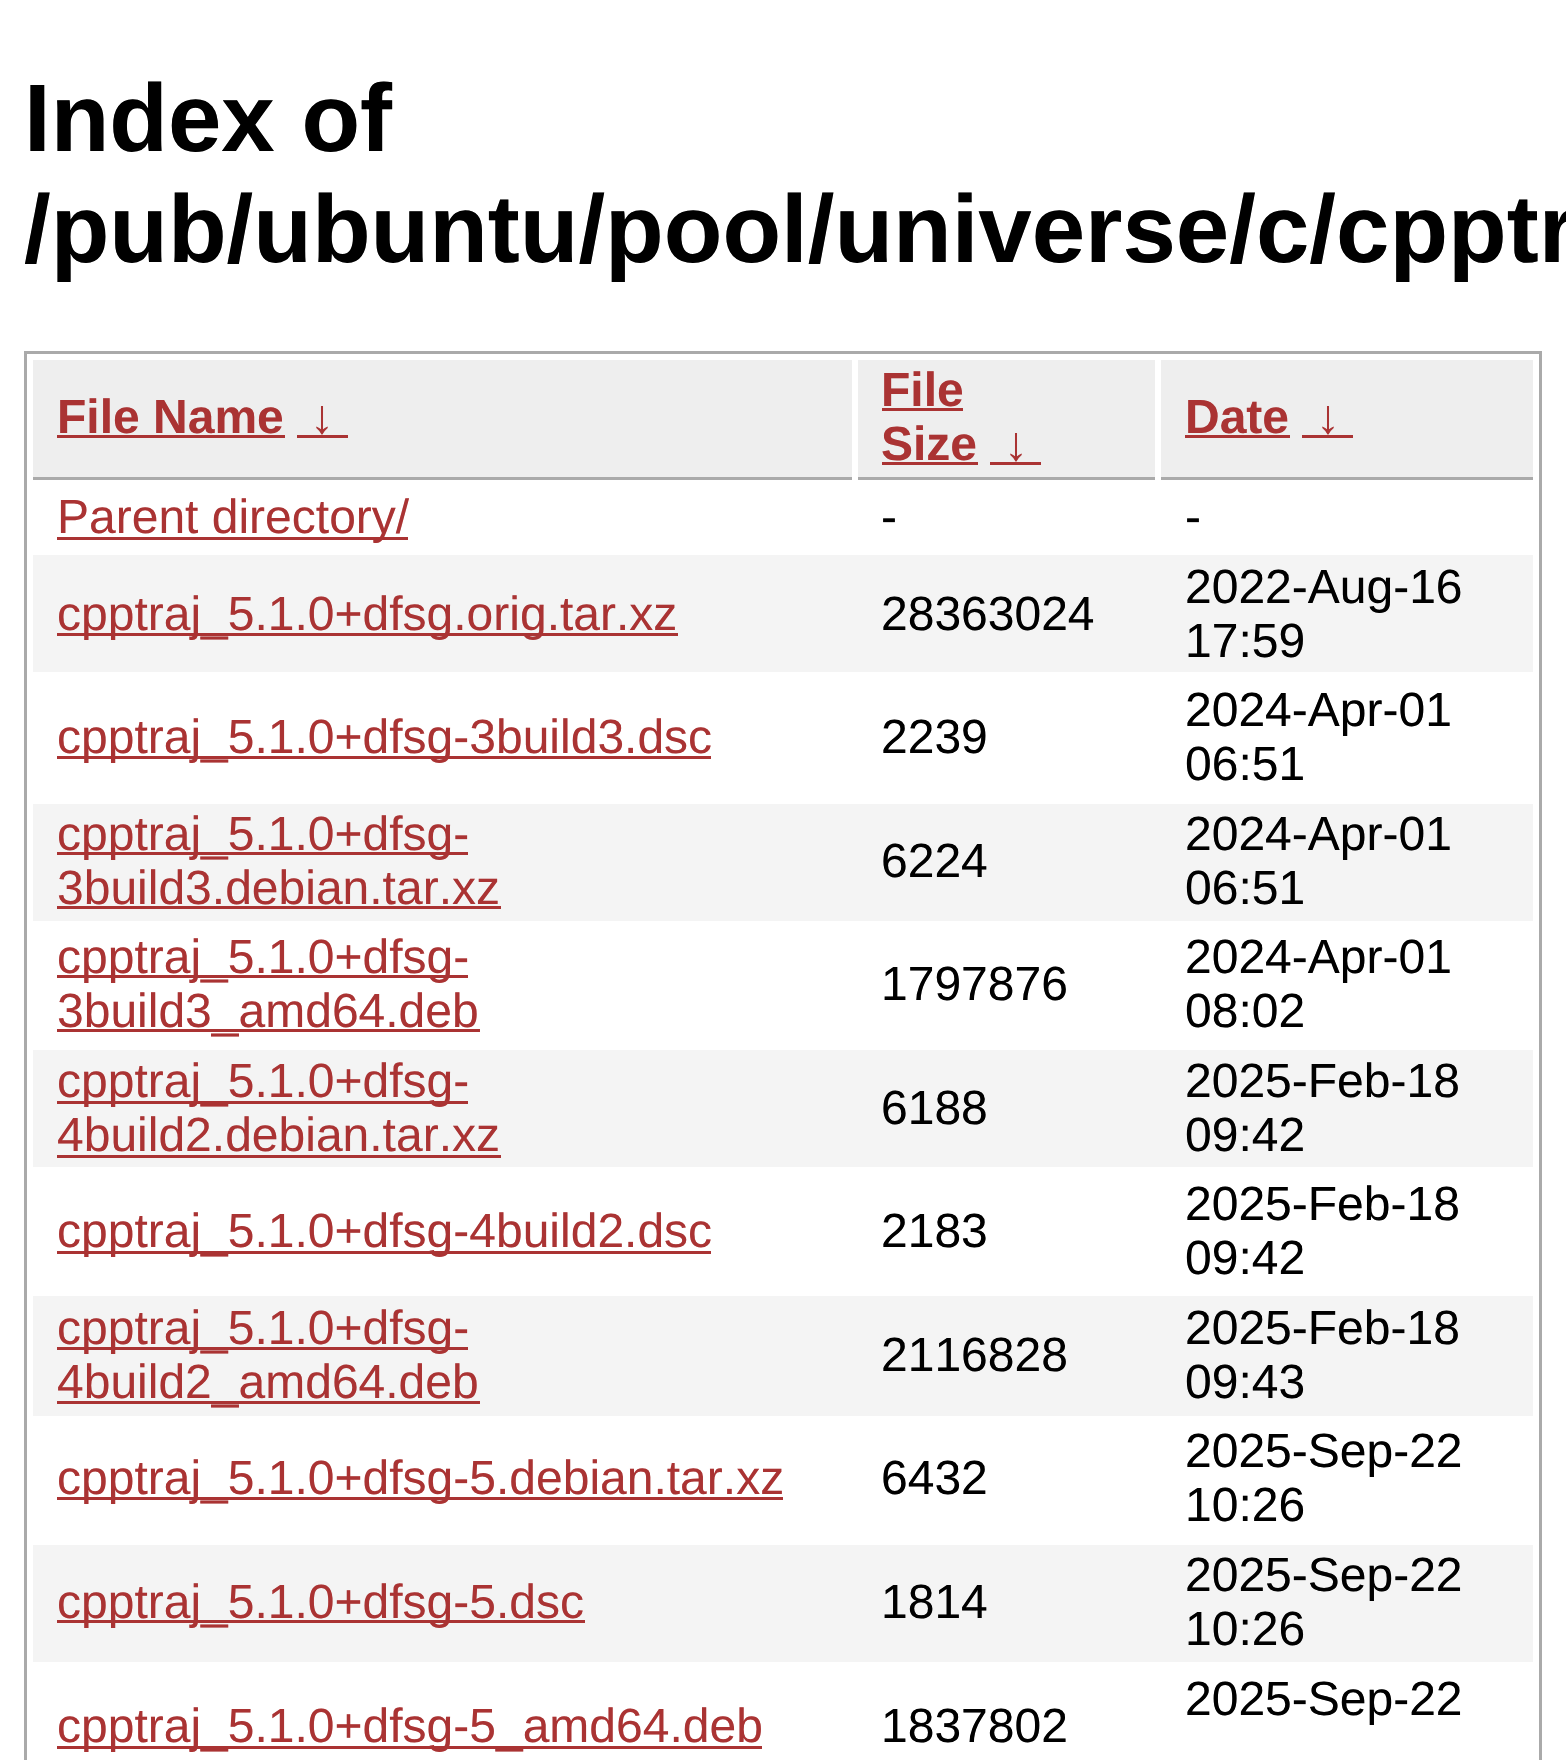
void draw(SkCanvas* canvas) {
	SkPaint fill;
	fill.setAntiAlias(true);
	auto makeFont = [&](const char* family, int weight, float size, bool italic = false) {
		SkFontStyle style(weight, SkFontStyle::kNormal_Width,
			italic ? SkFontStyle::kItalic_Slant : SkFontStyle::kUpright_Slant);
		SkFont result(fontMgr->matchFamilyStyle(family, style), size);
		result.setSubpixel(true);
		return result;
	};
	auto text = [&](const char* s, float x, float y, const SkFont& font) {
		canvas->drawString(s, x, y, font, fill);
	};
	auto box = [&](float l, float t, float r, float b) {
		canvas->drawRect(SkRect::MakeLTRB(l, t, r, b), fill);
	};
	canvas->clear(0xFFFFFFFF);
	fill.setStyle(SkPaint::kStroke_Style);
	fill.setStrokeWidth(3);
	fill.setColor(0xFFAAAAAA);
	canvas->drawRect(SkRect::MakeLTRB(25.5f, 352.5f, 1540.5f, 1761.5f), fill);
	fill.setStyle(SkPaint::kFill_Style);
	fill.setColor(0xFFEEEEEE);
	box(33, 360, 852, 477);
	fill.setColor(0xFFAAAAAA);
	box(33, 477, 852, 480);
	fill.setColor(0xFFAA3333);
	box(57, 435, 285, 438);
	box(297, 435, 348, 438);
	fill.setColor(0xFFEEEEEE);
	box(858, 360, 1155, 477);
	fill.setColor(0xFFAAAAAA);
	box(858, 477, 1155, 480);
	fill.setColor(0xFFAA3333);
	box(882, 408, 963, 411);
	box(882, 462, 978, 465);
	box(990, 462, 1041, 465);
	fill.setColor(0xFFEEEEEE);
	box(1161, 360, 1533, 477);
	fill.setColor(0xFFAAAAAA);
	box(1161, 477, 1533, 480);
	fill.setColor(0xFFAA3333);
	box(1185, 435, 1290, 438);
	box(1302, 435, 1353, 438);
	box(57, 537, 408, 540);
	fill.setColor(0xFFF4F4F4);
	box(33, 555, 1533, 672);
	fill.setColor(0xFFAA3333);
	box(57, 633, 678, 636);
	box(57, 756, 711, 759);
	fill.setColor(0xFFF4F4F4);
	box(33, 804, 1533, 921);
	fill.setColor(0xFFAA3333);
	box(57, 852, 468, 855);
	box(57, 906, 501, 909);
	box(57, 975, 468, 978);
	box(57, 1029, 480, 1032);
	fill.setColor(0xFFF4F4F4);
	box(33, 1050, 1533, 1167);
	fill.setColor(0xFFAA3333);
	box(57, 1101, 468, 1104);
	box(57, 1155, 501, 1158);
	box(57, 1251, 711, 1254);
	fill.setColor(0xFFF4F4F4);
	box(33, 1296, 1533, 1416);
	fill.setColor(0xFFAA3333);
	box(57, 1347, 468, 1350);
	box(57, 1401, 480, 1404);
	box(57, 1497, 783, 1500);
	fill.setColor(0xFFF4F4F4);
	box(33, 1545, 1533, 1662);
	fill.setColor(0xFFAA3333);
	box(57, 1620, 585, 1623);
	box(57, 1746, 762, 1749);
	auto font1 = makeFont("Liberation Sans", 700, 96);
	fill.setColor(0xFF000000);
	text("Index of", 24, 151, font1);
	text("/pub/ubuntu/pool/universe/c/cpptr", 24, 262, font1);
	auto font2 = makeFont("Liberation Sans", 700, 48);
	fill.setColor(0xFFAA3333);
	text("File Name", 57, 433, font2);
	text("↓", 310, 433, font2);
	text("File", 881, 406, font2);
	text("Size", 881, 460, font2);
	text("↓", 1004, 460, font2);
	text("Date", 1185, 433, font2);
	text("↓", 1316, 433, font2);
	auto font3 = makeFont("Liberation Sans", 400, 48);
	text("Parent directory/", 57, 533, font3);
	fill.setColor(0xFF000000);
	text("-", 881, 533, font3);
	text("-", 1185, 533, font3);
	fill.setColor(0xFFAA3333);
	text("cpptraj_5.1.0+dfsg.orig.tar.xz", 57, 630, font3);
	fill.setColor(0xFF000000);
	text("28363024", 881, 630, font3);
	text("2022-Aug-16", 1185, 603, font3);
	text("17:59", 1185, 657, font3);
	fill.setColor(0xFFAA3333);
	text("cpptraj_5.1.0+dfsg-3build3.dsc", 57, 753, font3);
	fill.setColor(0xFF000000);
	text("2239", 881, 753, font3);
	text("2024-Apr-01", 1185, 726, font3);
	text("06:51", 1185, 780, font3);
	fill.setColor(0xFFAA3333);
	text("cpptraj_5.1.0+dfsg-", 57, 850, font3);
	text("3build3.debian.tar.xz", 57, 904, font3);
	fill.setColor(0xFF000000);
	text("6224", 881, 877, font3);
	text("2024-Apr-01", 1185, 850, font3);
	text("06:51", 1185, 904, font3);
	fill.setColor(0xFFAA3333);
	text("cpptraj_5.1.0+dfsg-", 57, 973, font3);
	text("3build3_amd64.deb", 57, 1027, font3);
	fill.setColor(0xFF000000);
	text("1797876", 881, 1000, font3);
	text("2024-Apr-01", 1185, 973, font3);
	text("08:02", 1185, 1027, font3);
	fill.setColor(0xFFAA3333);
	text("cpptraj_5.1.0+dfsg-", 57, 1097, font3);
	text("4build2.debian.tar.xz", 57, 1151, font3);
	fill.setColor(0xFF000000);
	text("6188", 881, 1124, font3);
	text("2025-Feb-18", 1185, 1097, font3);
	text("09:42", 1185, 1151, font3);
	fill.setColor(0xFFAA3333);
	text("cpptraj_5.1.0+dfsg-4build2.dsc", 57, 1247, font3);
	fill.setColor(0xFF000000);
	text("2183", 881, 1247, font3);
	text("2025-Feb-18", 1185, 1220, font3);
	text("09:42", 1185, 1274, font3);
	fill.setColor(0xFFAA3333);
	text("cpptraj_5.1.0+dfsg-", 57, 1344, font3);
	text("4build2_amd64.deb", 57, 1398, font3);
	fill.setColor(0xFF000000);
	text("2116828", 881, 1371, font3);
	text("2025-Feb-18", 1185, 1344, font3);
	text("09:43", 1185, 1398, font3);
	fill.setColor(0xFFAA3333);
	text("cpptraj_5.1.0+dfsg-5.debian.tar.xz", 57, 1494, font3);
	fill.setColor(0xFF000000);
	text("6432", 881, 1494, font3);
	text("2025-Sep-22", 1185, 1467, font3);
	text("10:26", 1185, 1521, font3);
	fill.setColor(0xFFAA3333);
	text("cpptraj_5.1.0+dfsg-5.dsc", 57, 1618, font3);
	fill.setColor(0xFF000000);
	text("1814", 881, 1618, font3);
	text("2025-Sep-22", 1185, 1591, font3);
	text("10:26", 1185, 1645, font3);
	fill.setColor(0xFFAA3333);
	text("cpptraj_5.1.0+dfsg-5_amd64.deb", 57, 1742, font3);
	fill.setColor(0xFF000000);
	text("1837802", 881, 1742, font3);
	text("2025-Sep-22", 1185, 1715, font3);
}
